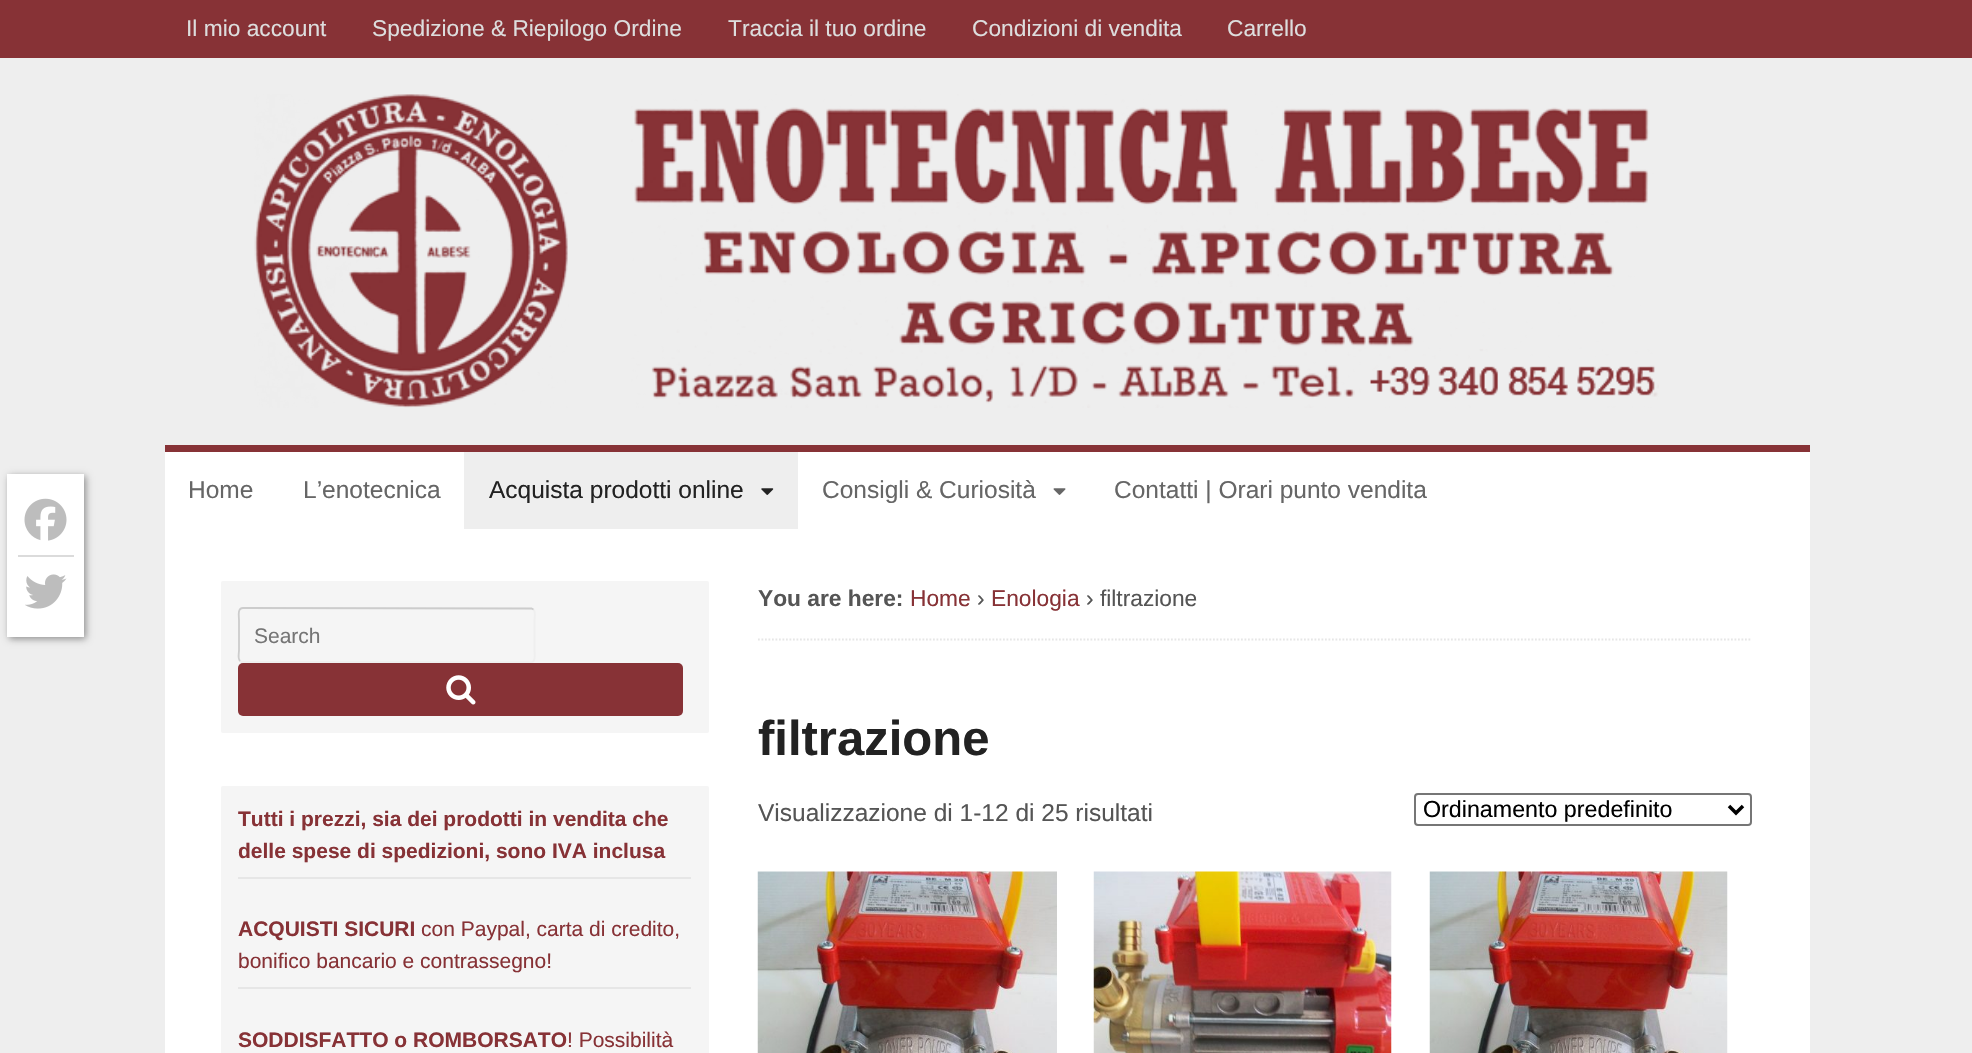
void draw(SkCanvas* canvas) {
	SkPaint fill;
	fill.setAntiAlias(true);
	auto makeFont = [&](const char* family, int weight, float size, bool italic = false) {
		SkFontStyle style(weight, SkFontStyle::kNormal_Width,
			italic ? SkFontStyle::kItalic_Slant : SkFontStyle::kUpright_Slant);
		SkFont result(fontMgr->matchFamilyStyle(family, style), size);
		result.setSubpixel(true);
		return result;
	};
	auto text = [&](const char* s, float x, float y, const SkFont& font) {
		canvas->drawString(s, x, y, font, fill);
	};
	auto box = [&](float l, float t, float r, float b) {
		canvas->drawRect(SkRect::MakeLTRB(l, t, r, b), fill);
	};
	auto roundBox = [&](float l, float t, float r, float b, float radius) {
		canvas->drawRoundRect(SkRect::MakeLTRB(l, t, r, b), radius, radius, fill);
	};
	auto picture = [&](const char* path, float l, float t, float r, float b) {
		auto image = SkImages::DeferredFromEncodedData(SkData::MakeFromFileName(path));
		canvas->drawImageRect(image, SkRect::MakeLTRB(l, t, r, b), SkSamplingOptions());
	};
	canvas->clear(0xFFEEEEEE);
	fill.setColor(0xFF873236);
	box(0, 0, 1972, 58);
	fill.setColor(0x66000000);
	fill.setMaskFilter(SkMaskFilter::MakeBlur(kNormal_SkBlurStyle, 3.5f));
	canvas->drawRect(SkRect::MakeLTRB(9, 476, 86, 639), fill);
	fill.setMaskFilter(nullptr);
	fill.setColor(0xFFFFFFFF);
	box(7, 474, 84, 637);
	fill.setColor(0xFFDBDBDB);
	box(18, 555, 74, 557);
	picture("image0.png", 24, 498, 67, 541);
	picture("image1.png", 25, 574, 67, 609);
	fill.setColor(0xFFFFFFFF);
	box(165, 452, 1810, 1053);
	picture("image2.png", 254, 94, 1659, 408);
	fill.setColor(0xFF873236);
	box(165, 445, 1810, 452);
	fill.setColor(0xFFEEEEEE);
	box(464, 452, 798, 529);
	picture("image3.png", 761, 488, 774, 495);
	picture("image4.png", 1053, 488, 1066, 495);
	fill.setColor(0xFFF5F5F5);
	roundBox(221, 581, 709, 733, 2);
	fill.setStyle(SkPaint::kStroke_Style);
	fill.setStrokeWidth(1.8f);
	fill.setColor(0xFFEFEFEF);
	canvas->drawPath(SkPathBuilder().moveTo(533.5f, 609.5f).cubicTo(536, 612, 534.5f, 618, 534.5f, 620).lineTo(534.5f, 650.5f).cubicTo(534.5f, 653.5f, 536.5f, 662.5f, 530, 662.5f).lineTo(242, 662).lineTo(240, 661).detach(), fill);
	fill.setColor(0xFFCCCCCC);
	canvas->drawPath(SkPathBuilder().moveTo(240, 661).cubicTo(237.5f, 658.5f, 239, 652.5f, 239, 650.5f).lineTo(239, 620).cubicTo(239, 617, 237, 608, 243, 608).lineTo(531.5f, 608.5f).lineTo(533.5f, 609.5f).detach(), fill);
	fill.setStyle(SkPaint::kFill_Style);
	fill.setColor(0xFF873236);
	roundBox(238, 663, 683, 716, 5);
	picture("image5.png", 446, 675, 476, 705);
	fill.setColor(0xFFF5F5F5);
	roundBox(221, 786, 709, 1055, 2);
	fill.setColor(0xFFE6E6E6);
	box(238, 877, 691, 879);
	box(238, 987, 691, 989);
	fill.setStyle(SkPaint::kStroke_Style);
	fill.setPathEffect(SkDashPathEffect::Make({{1.75f, 1.75f}}, 0));
	canvas->drawPath(SkPathBuilder().moveTo(758, 639.5f).lineTo(1752, 639.5f).detach(), fill);
	fill.setPathEffect(nullptr);
	fill.setStrokeWidth(2);
	fill.setColor(0xFF767676);
	canvas->drawRoundRect(SkRect::MakeLTRB(1415, 794, 1751, 825), 3, 3, fill);
	fill.setStrokeWidth(3.5f);
	fill.setColor(0xFF000000);
	canvas->drawPath(SkPathBuilder().moveTo(1729, 806).lineTo(1736, 813).lineTo(1743, 806).detach(), fill);
	picture("image6.png", 757, 871, 1057, 1053);
	picture("image7.png", 1093, 871, 1392, 1053);
	picture("image8.png", 1429, 871, 1728, 1053);
	auto font1 = makeFont("Liberation Sans", 400, 22.75f);
	fill.setStyle(SkPaint::kFill_Style);
	fill.setColor(0xFFDDDDDD);
	text("Il mio account", 186, 36, font1);
	text("Spedizione & Riepilogo Ordine", 372, 36, font1);
	text("Traccia il tuo ordine", 728, 36, font1);
	text("Condizioni di vendita", 972, 36, font1);
	text("Carrello", 1227, 36, font1);
	auto font2 = makeFont("Liberation Sans", 400, 24.5f);
	fill.setColor(0xFF666666);
	text("Home", 188, 498, font2);
	text("L’enotecnica", 303, 498, font2);
	fill.setColor(0xFF222222);
	text("Acquista prodotti online", 489, 498, font2);
	fill.setColor(0xFF666666);
	text("Consigli & Curiosità", 822, 498, font2);
	text("Contatti | Orari punto vendita", 1114, 498, font2);
	auto font3 = makeFont("Liberation Sans", 400, 21);
	fill.setColor(0xFF757575);
	text("Search", 254, 643, font3);
	auto font4 = makeFont("Liberation Sans", 700, 21);
	fill.setColor(0xFF873236);
	text("Tutti i prezzi, sia dei prodotti in vendita che", 238, 826, font4);
	text("delle spese di spedizioni, sono IVA inclusa", 238, 858, font4);
	text("ACQUISTI SICURI", 238, 936, font4);
	text("con Paypal, carta di credito,", 421, 936, font3);
	text("bonifico bancario e contrassegno!", 238, 968, font3);
	text("SODDISFATTO o ROMBORSATO", 238, 1047, font4);
	text("! Possibilità", 567, 1047, font3);
	auto font5 = makeFont("Liberation Sans", 700, 22.75f);
	fill.setColor(0xFF555555);
	text("You are here:", 758, 606, font5);
	fill.setColor(0xFF873236);
	text("Home", 910, 606, font1);
	fill.setColor(0xFF555555);
	text("›", 977, 606, font1);
	fill.setColor(0xFF873236);
	text("Enologia", 991, 606, font1);
	fill.setColor(0xFF555555);
	text("› filtrazione", 1086, 606, font1);
	auto font6 = makeFont("Liberation Sans", 700, 49);
	fill.setColor(0xFF222222);
	text("filtrazione", 758, 755, font6);
	fill.setColor(0xFF555555);
	text("Visualizzazione di 1-12 di 25 risultati", 758, 821, font2);
	auto font7 = makeFont("Liberation Sans", 400, 23.25f);
	fill.setColor(0xFF000000);
	text("Ordinamento predefinito", 1423, 817, font7);
}
